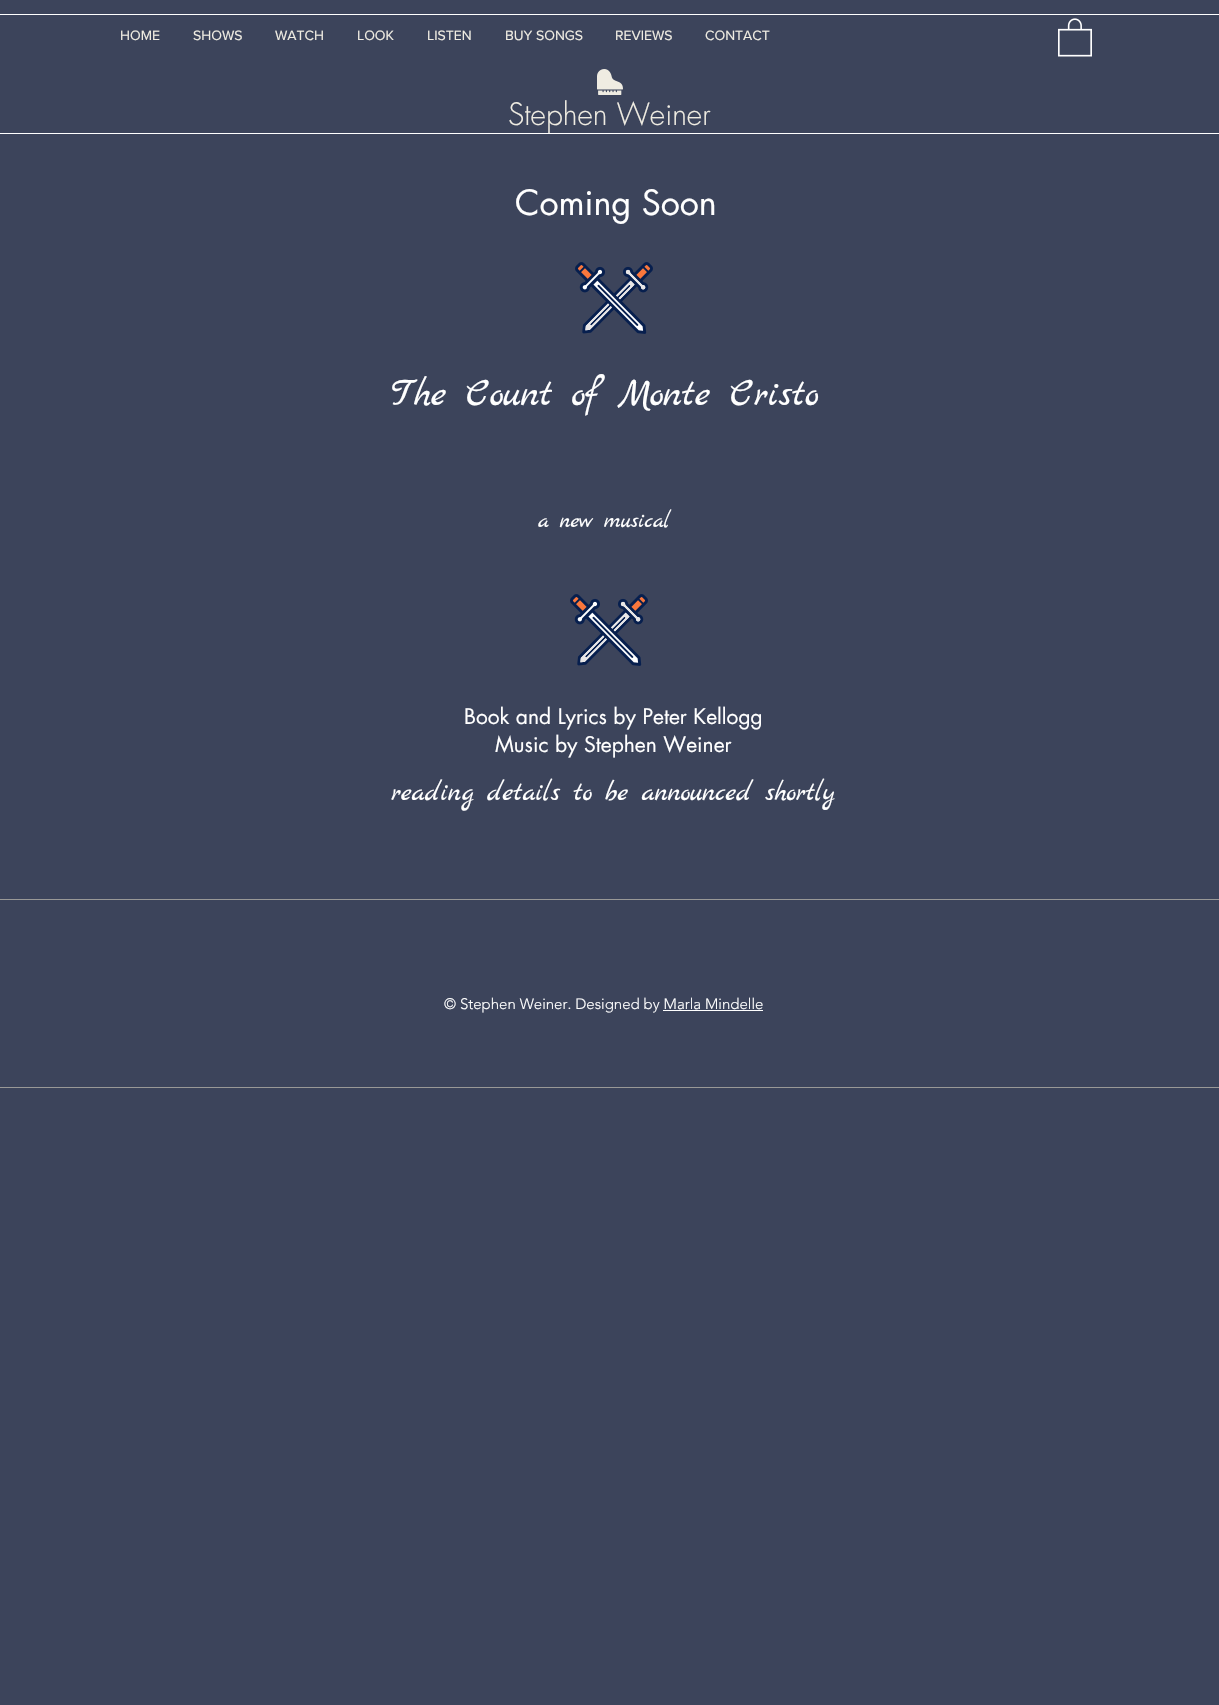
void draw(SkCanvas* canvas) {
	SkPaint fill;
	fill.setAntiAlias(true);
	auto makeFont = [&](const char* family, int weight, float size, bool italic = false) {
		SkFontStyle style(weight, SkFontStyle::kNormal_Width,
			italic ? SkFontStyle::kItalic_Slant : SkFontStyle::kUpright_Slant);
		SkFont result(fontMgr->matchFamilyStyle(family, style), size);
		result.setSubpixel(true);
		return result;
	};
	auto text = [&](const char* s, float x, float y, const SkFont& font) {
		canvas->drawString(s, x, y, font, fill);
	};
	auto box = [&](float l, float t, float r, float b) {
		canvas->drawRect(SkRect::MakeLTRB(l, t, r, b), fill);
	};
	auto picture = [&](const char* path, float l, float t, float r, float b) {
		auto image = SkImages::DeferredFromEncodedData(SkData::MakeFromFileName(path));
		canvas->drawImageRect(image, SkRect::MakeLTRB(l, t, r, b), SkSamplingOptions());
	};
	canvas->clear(0xFF3C445B);
	fill.setColor(0xFFFFFFFF);
	box(0, 14, 1219, 15);
	box(0, 133, 1219, 134);
	picture("image0.png", 1058, 18, 1092, 57);
	picture("image1.png", 597, 69, 623, 95);
	picture("image2.png", 575, 262, 653, 334);
	picture("image2.png", 570, 594, 648, 666);
	fill.setColor(0xFF999997);
	box(0, 899, 1219, 900);
	box(0, 1087, 1219, 1088);
	fill.setColor(0xFFFFFFFF);
	box(663, 1010, 763, 1011);
	auto font1 = makeFont("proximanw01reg", 400, 14);
	fill.setColor(0xFFEFECE2);
	text("HOME", 120, 40, font1);
	text("SHOWS", 193, 40, font1);
	text("WATCH", 275, 40, font1);
	text("LOOK", 357, 40, font1);
	text("LISTEN", 427, 40, font1);
	text("BUY SONGS", 505, 40, font1);
	text("REVIEWS", 615, 40, font1);
	text("CONTACT", 705, 40, font1);
	auto font2 = makeFont("futura", 300, 30);
	text("Stephen Weiner", 508, 125, font2);
	auto font3 = makeFont("futura", 400, 34);
	fill.setColor(0xFFFFFFFF);
	text("Coming Soon", 515, 215, font3);
	auto font4 = makeFont("Marck Script", 400, 40);
	text("The Count of Monte Cristo", 391, 405, font4);
	auto font5 = makeFont("Marck Script", 400, 23);
	text("a new musical", 538, 527, font5);
	auto font6 = makeFont("futura", 400, 21);
	text("Book and Lyrics by Peter Kellogg", 464, 724, font6);
	text("Music by Stephen Weiner", 495, 752, font6);
	auto font7 = makeFont("Marck Script", 400, 28);
	text("reading details to be announced shortly", 391, 800, font7);
	auto font8 = makeFont("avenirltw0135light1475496", 300, 15);
	text("© Stephen Weiner. Designed by Marla Mindelle", 444, 1009, font8);
}
